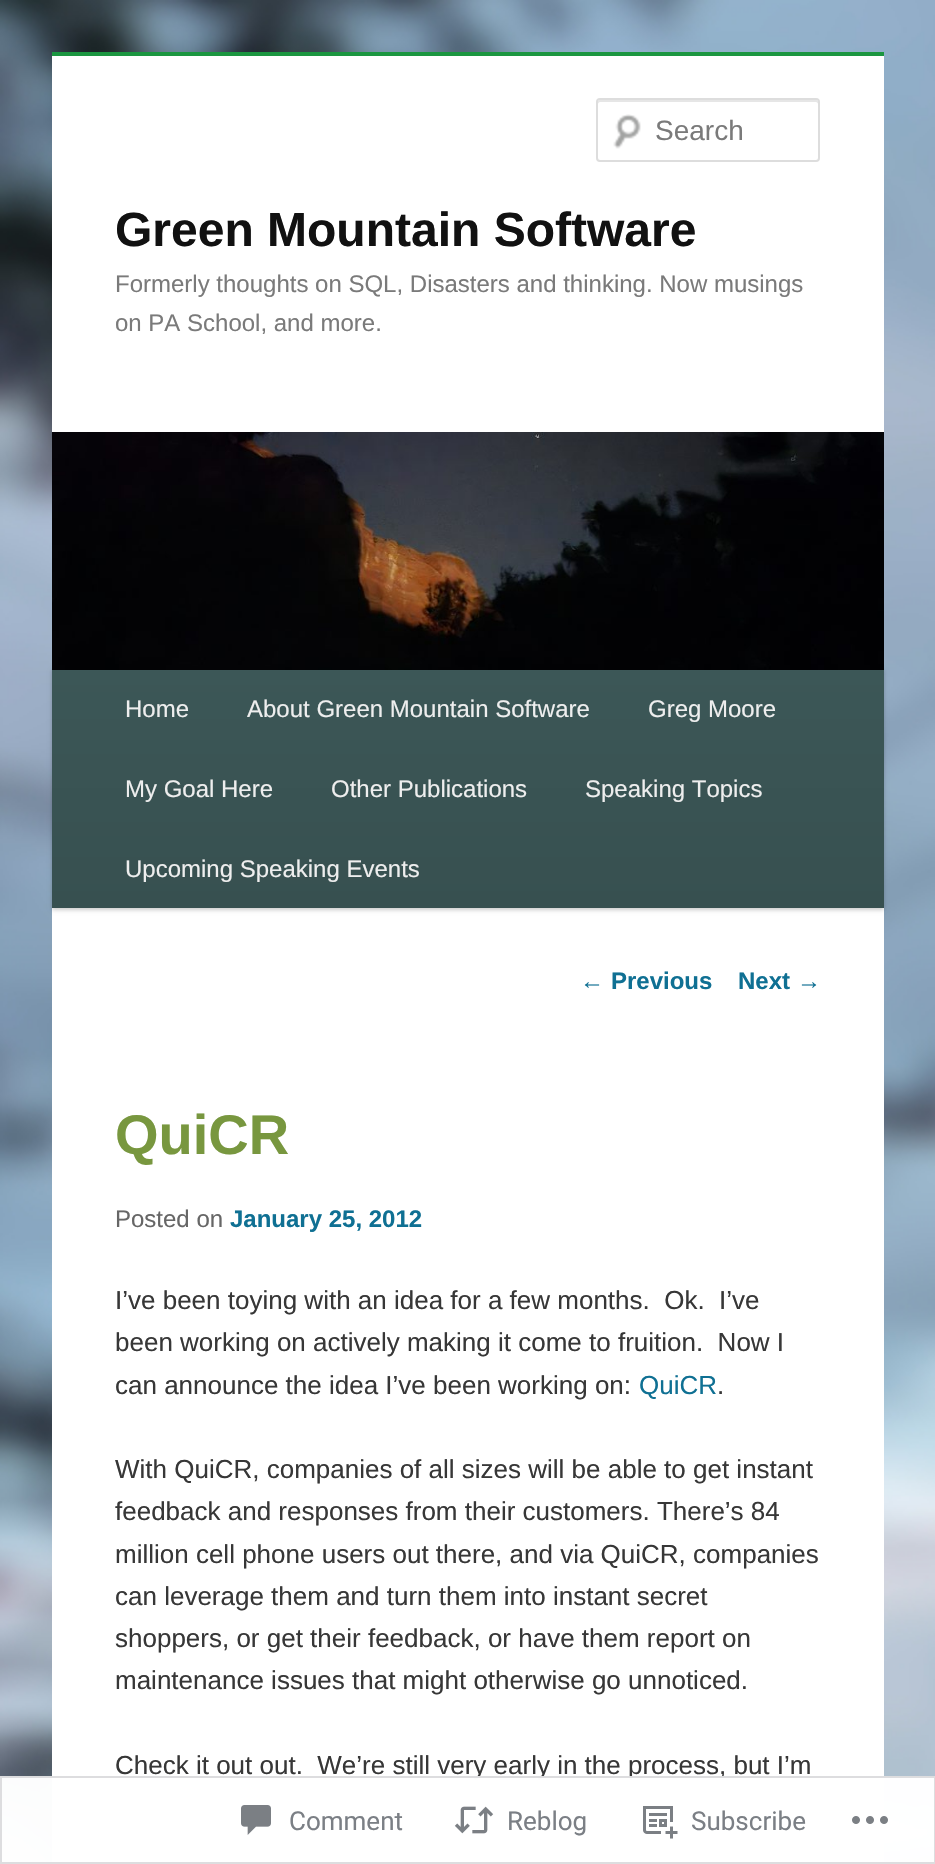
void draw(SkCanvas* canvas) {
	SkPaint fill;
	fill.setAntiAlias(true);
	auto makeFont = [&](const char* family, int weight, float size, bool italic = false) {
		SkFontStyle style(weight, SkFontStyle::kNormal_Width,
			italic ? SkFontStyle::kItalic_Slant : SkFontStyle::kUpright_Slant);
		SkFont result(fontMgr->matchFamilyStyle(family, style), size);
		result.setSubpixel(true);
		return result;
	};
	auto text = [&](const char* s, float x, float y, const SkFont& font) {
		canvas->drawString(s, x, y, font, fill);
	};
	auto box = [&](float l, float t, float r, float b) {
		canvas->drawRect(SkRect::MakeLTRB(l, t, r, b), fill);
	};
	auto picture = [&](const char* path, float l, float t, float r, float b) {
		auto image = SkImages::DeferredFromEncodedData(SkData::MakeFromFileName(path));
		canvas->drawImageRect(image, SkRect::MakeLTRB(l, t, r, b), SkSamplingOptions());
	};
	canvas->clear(0xFFFFFFFF);
	picture("image0.png", 0, 0, 935, 1864);
	fill.setColor(0xFFFFFFFF);
	box(52, 56, 884, 1864);
	fill.setColor(0xFF1B9640);
	box(52, 52, 884, 56);
	picture("image1.png", 613, 114, 641, 149);
	fill.setColor(0xFFE6E6E6);
	canvas->drawPath(SkPathBuilder().moveTo(600, 102).lineTo(816, 102).cubicTo(817, 102, 818, 103, 818, 104).lineTo(818, 102).cubicTo(818, 101, 817, 100, 816, 100).lineTo(600, 100).cubicTo(599, 100, 598, 101, 598, 102).lineTo(598, 104).cubicTo(598, 103, 599, 102, 600, 102).close().detach(), fill);
	fill.setStyle(SkPaint::kStroke_Style);
	fill.setStrokeWidth(2);
	fill.setColor(0xFFDDDDDD);
	canvas->drawRoundRect(SkRect::MakeLTRB(597, 99, 819, 161), 3, 3, fill);
	fill.setStyle(SkPaint::kFill_Style);
	fill.setColor(0x33000000);
	fill.setMaskFilter(SkMaskFilter::MakeBlur(kNormal_SkBlurStyle, 2));
	canvas->drawRect(SkRect::MakeLTRB(52, 670, 884, 910), fill);
	fill.setMaskFilter(nullptr);
	picture("image2.png", 52, 432, 884, 670);
	{
		const SkColor colors[] = {0xFF3C5757, 0xFF375050};
		const float stops[] = {0, 1};
		const SkPoint ends[] = {{468, 668}, {468, 908}};
		fill.setShader(SkGradientShader::MakeLinear(ends, colors, stops, 2, SkTileMode::kClamp));
		fill.setAlpha(255);
	}
	box(52, 670, 884, 908);
	auto font1 = makeFont("Liberation Sans", 400, 28);
	fill.setShader(nullptr);
	fill.setColor(0xFF7A7A7A);
	text("Search", 655, 140, font1);
	auto font2 = makeFont("Liberation Sans", 700, 48);
	fill.setColor(0xFF111111);
	text("Green Mountain Software", 115, 246, font2);
	auto font3 = makeFont("Liberation Sans", 400, 24);
	fill.setColor(0xFF7A7A7A);
	text("Formerly thoughts on SQL, Disasters and thinking. Now musings", 115, 292, font3);
	text("on PA School, and more.", 115, 331, font3);
	fill.setColor(0xFFEEEEEE);
	text("Home", 125, 717, font3);
	text("About Green Mountain Software", 247, 717, font3);
	text("Greg Moore", 648, 717, font3);
	text("My Goal Here", 125, 797, font3);
	text("Other Publications", 331, 797, font3);
	text("Speaking Topics", 585, 797, font3);
	text("Upcoming Speaking Events", 125, 877, font3);
	fill.setColor(0xFF0F7093);
	text("←", 580, 989, font3);
	auto font4 = makeFont("Liberation Sans", 700, 24);
	text("Previous", 611, 989, font4);
	text("Next", 738, 989, font4);
	text("→", 797, 989, font3);
	auto font5 = makeFont("Liberation Sans", 700, 56);
	fill.setColor(0xFF78973F);
	text("QuiCR", 115, 1154, font5);
	fill.setColor(0xFF666666);
	text("Posted on", 115, 1227, font3);
	fill.setColor(0xFF0F7093);
	text("January 25, 2012", 230, 1227, font4);
	auto font6 = makeFont("Liberation Sans", 400, 26);
	fill.setColor(0xFF373737);
	text("I’ve been toying with an idea for a few months.  Ok.  I’ve", 115, 1309, font6);
	text("been working on actively making it come to fruition.  Now I", 115, 1351, font6);
	text("can announce the idea I’ve been working on:", 115, 1394, font6);
	fill.setColor(0xFF0F7093);
	text("QuiCR", 639, 1394, font6);
	fill.setColor(0xFF373737);
	text(".", 717, 1394, font6);
	text("With QuiCR, companies of all sizes will be able to get instant", 115, 1478, font6);
	text("feedback and responses from their customers. There’s 84", 115, 1520, font6);
	text("million cell phone users out there, and via QuiCR, companies", 115, 1563, font6);
	text("can leverage them and turn them into instant secret", 115, 1605, font6);
	text("shoppers, or get their feedback, or have them report on", 115, 1647, font6);
	text("maintenance issues that might otherwise go unnoticed.", 115, 1689, font6);
	text("Check it out out.  We’re still very early in the process, but I’m", 115, 1774, font6);
	fill.setColor(0xFAFFFFFF);
	box(0, 1776, 935, 1864);
	fill.setStyle(SkPaint::kStroke_Style);
	fill.setColor(0xFADCDCDE);
	canvas->drawRect(SkRect::MakeLTRB(1, 1777, 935, 1863), fill);
	picture("image3.png", 241, 1805, 271, 1835);
	auto font7 = makeFont("Roboto", 400, 26);
	fill.setStyle(SkPaint::kFill_Style);
	fill.setColor(0xFF7B7F85);
	text("Comment", 289, 1830, font7);
	picture("image4.png", 454, 1806, 494, 1834);
	text("Reblog", 507, 1830, font7);
	picture("image5.png", 643, 1806, 678, 1839);
	text("Subscribe", 691, 1830, font7);
	picture("image6.png", 852, 1816, 888, 1824);
}
